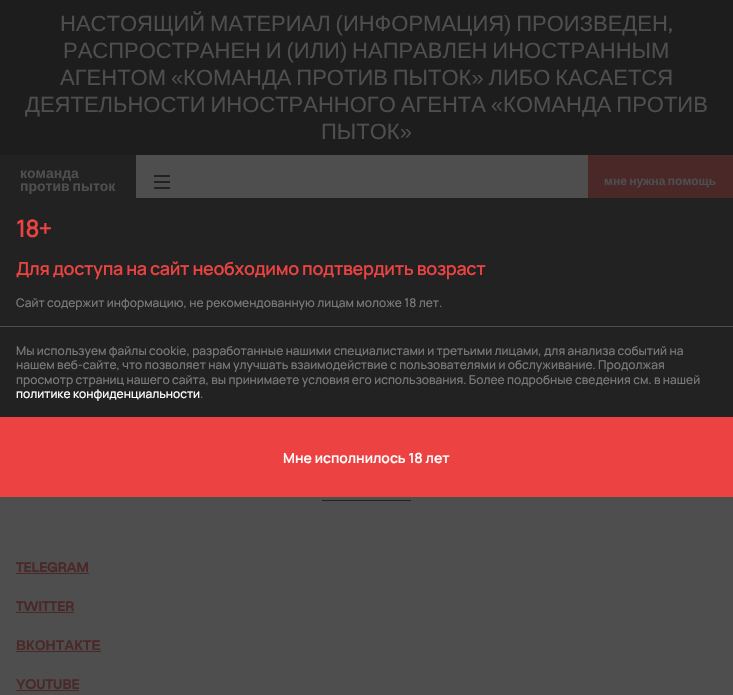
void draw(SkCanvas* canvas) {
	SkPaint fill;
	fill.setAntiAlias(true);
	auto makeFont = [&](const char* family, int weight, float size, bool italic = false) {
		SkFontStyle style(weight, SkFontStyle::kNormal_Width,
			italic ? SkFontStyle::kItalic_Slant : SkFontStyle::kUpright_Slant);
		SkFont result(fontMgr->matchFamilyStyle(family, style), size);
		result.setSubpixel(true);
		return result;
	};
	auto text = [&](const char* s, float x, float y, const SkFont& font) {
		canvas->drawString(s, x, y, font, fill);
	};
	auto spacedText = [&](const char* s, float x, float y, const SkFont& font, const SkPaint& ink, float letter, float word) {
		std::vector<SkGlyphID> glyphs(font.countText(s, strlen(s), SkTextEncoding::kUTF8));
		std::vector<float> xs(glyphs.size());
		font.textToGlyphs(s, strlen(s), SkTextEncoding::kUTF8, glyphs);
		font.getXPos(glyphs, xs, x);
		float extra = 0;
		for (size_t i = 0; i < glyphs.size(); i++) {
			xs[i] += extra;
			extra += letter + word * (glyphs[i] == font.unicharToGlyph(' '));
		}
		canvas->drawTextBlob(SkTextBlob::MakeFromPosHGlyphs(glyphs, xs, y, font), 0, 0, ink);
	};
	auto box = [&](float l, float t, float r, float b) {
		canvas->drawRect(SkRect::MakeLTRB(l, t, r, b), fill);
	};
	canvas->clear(0xFF4E4E4E);
	fill.setColor(0xFF1D1D1D);
	box(0, 0, 733, 155);
	fill.setColor(0xFF222222);
	box(0, 155, 136, 198);
	box(154, 175, 170, 177);
	box(154, 181, 170, 183);
	box(154, 187, 170, 189);
	fill.setColor(0xFF4B2828);
	box(588, 155, 733, 198);
	fill.setColor(0xFF222222);
	box(0, 198, 733, 417);
	fill.setColor(0xFF4E4E4E);
	box(0, 326, 733, 327);
	fill.setColor(0xFFED4242);
	box(0, 417, 733, 497);
	fill.setColor(0xFF222222);
	box(322, 500, 411, 501);
	fill.setColor(0xFF4B2828);
	box(16, 573, 89, 574);
	box(16, 612, 74, 613);
	box(16, 651, 101, 652);
	box(16, 690, 79, 691);
	auto font1 = makeFont("Liberation Sans", 400, 22);
	fill.setColor(0xFF4E4E4E);
	spacedText("НАСТОЯЩИЙ МАТЕРИАЛ (ИНФОРМАЦИЯ) ПРОИЗВЕДЕН", 60, 31, font1, fill, 0, -1.25f);
	auto font2 = makeFont("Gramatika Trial", 400, 22);
	text(",", 668, 31, font2);
	spacedText("РАСПРОСТРАНЕН И (ИЛИ) НАПРАВЛЕН ИНОСТРАННЫМ", 63, 58, font1, fill, 0, -1.25f);
	spacedText("АГЕНТОМ «КОМАНДА ПРОТИВ ПЫТОК» ЛИБО КАСАЕТСЯ", 60, 85, font1, fill, 0, -1.25f);
	spacedText("ДЕЯТЕЛЬНОСТИ ИНОСТРАННОГО АГЕНТА «КОМАНДА ПРОТИВ", 25, 112, font1, fill, 0, -1.25f);
	text("ПЫТОК»", 321, 139, font1);
	auto font3 = makeFont("Liberation Sans", 700, 14);
	text("команда", 20, 178, font3);
	spacedText("против пыток", 20, 191, font3, fill, 0, -1);
	auto font4 = makeFont("Liberation Sans", 700, 12);
	spacedText("мне нужна помощь", 604, 185, font4, fill, 0, -1);
	auto font5 = makeFont("Manrope", 600, 24);
	fill.setColor(0xFFED4242);
	spacedText("18+", 16, 237, font5, fill, -1, 0);
	auto font6 = makeFont("Manrope", 600, 18);
	spacedText("Для доступа на сайт необходимо подтвердить возраст", 16, 275, font6, fill, -0.35f, 0);
	auto font7 = makeFont("Manrope", 500, 12);
	fill.setColor(0xFF7A7A7A);
	text("Сайт содержит информацию, не рекомендованную лицам моложе 18 лет.", 16, 307, font7);
	text("Мы используем файлы cookie, разработанные нашими специалистами и третьими лицами, для анализа событий на", 16, 355, font7);
	text("нашем веб-сайте, что позволяет нам улучшать взаимодействие с пользователями и обслуживание. Продолжая", 16, 369, font7);
	text("просмотр страниц нашего сайта, вы принимаете условия его использования. Более подробные сведения см. в нашей", 16, 384, font7);
	fill.setColor(0xFFFFFFFF);
	text("политике конфиденциальности", 16, 398, font7);
	fill.setColor(0xFF7A7A7A);
	text(".", 200, 398, font7);
	auto font8 = makeFont("Manrope", 600, 14);
	fill.setColor(0xFFFFFFFF);
	text("Мне исполнилось 18 лет", 283, 463, font8);
	auto font9 = makeFont("Gramatika Trial", 700, 14);
	fill.setColor(0xFF4B2828);
	text("TELEGRAM", 16, 572, font9);
	text("TWITTER", 16, 611, font9);
	text("ВКОНТАКТЕ", 16, 650, font3);
	text("YOUTUBE", 16, 689, font9);
}
